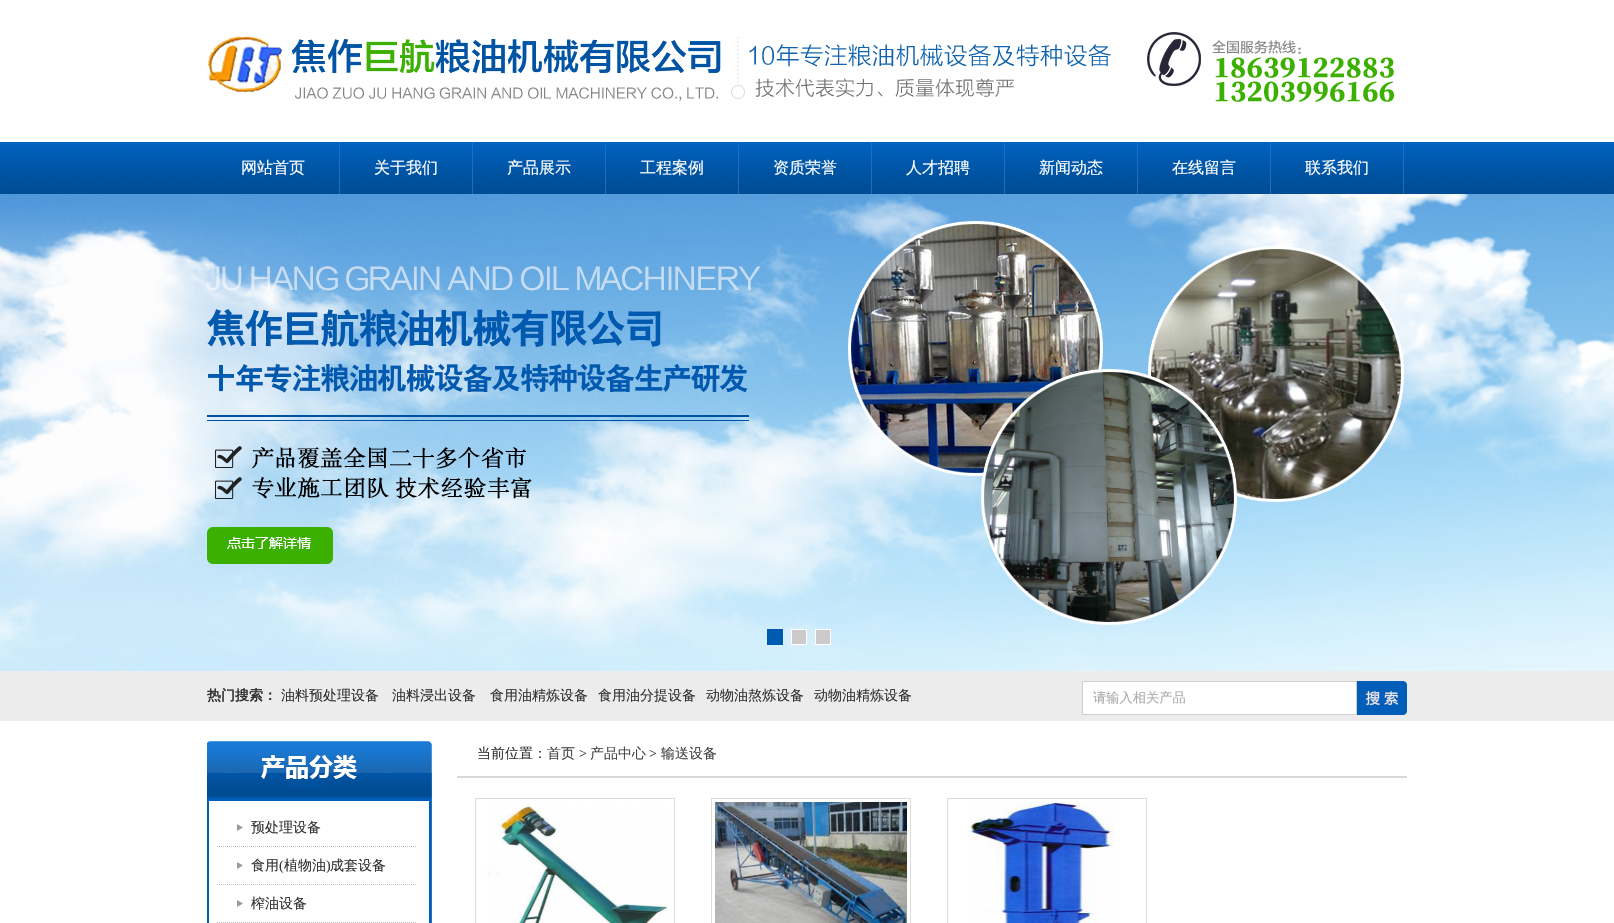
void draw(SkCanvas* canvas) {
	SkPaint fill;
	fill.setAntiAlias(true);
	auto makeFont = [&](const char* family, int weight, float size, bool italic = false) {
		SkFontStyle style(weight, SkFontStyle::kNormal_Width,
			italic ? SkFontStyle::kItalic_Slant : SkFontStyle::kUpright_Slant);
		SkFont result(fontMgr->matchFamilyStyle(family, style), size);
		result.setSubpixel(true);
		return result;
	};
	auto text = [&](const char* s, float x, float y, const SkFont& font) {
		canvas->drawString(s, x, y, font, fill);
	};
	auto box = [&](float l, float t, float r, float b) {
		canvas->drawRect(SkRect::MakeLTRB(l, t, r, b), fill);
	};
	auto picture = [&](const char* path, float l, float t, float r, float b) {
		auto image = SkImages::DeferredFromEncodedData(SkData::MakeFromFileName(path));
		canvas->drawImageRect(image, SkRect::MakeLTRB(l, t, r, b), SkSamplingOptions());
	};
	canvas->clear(0xFFFFFFFF);
	picture("image0.png", 207, 32, 1111, 101);
	picture("image1.png", 1147, 32, 1394, 102);
	picture("image2.png", 0, 142, 1614, 194);
	fill.setColor(0xFF1A70C3);
	box(339, 142, 340, 194);
	box(472, 142, 473, 194);
	box(605, 142, 606, 194);
	box(738, 142, 739, 194);
	box(871, 142, 872, 194);
	box(1004, 142, 1005, 194);
	box(1137, 142, 1138, 194);
	box(1270, 142, 1271, 194);
	box(1403, 142, 1404, 194);
	picture("image3.png", 0, 194, 1614, 671);
	fill.setColor(0xFF005BB0);
	box(767, 629, 783, 645);
	fill.setColor(0xFFCCCACA);
	canvas->drawRect(SkRect::MakeLTRB(791.5f, 629.5f, 806.5f, 644.5f), fill);
	fill.setStyle(SkPaint::kStroke_Style);
	fill.setStrokeWidth(1);
	fill.setColor(0xFFFFFFFF);
	canvas->drawRect(SkRect::MakeLTRB(791.5f, 629.5f, 806.5f, 644.5f), fill);
	fill.setStyle(SkPaint::kFill_Style);
	fill.setColor(0xFFCCCACA);
	canvas->drawRect(SkRect::MakeLTRB(815.5f, 629.5f, 830.5f, 644.5f), fill);
	fill.setStyle(SkPaint::kStroke_Style);
	fill.setColor(0xFFFFFFFF);
	canvas->drawRect(SkRect::MakeLTRB(815.5f, 629.5f, 830.5f, 644.5f), fill);
	fill.setStyle(SkPaint::kFill_Style);
	fill.setColor(0xFFECECEC);
	box(0, 671, 1614, 721);
	fill.setColor(0xFFFFFFFF);
	canvas->drawRect(SkRect::MakeLTRB(1082.5f, 681.5f, 1356.5f, 714.5f), fill);
	fill.setStyle(SkPaint::kStroke_Style);
	fill.setColor(0xFFCECECE);
	canvas->drawRect(SkRect::MakeLTRB(1082.5f, 681.5f, 1356.5f, 714.5f), fill);
	picture("image4.png", 1357, 681, 1407, 715);
	fill.setStyle(SkPaint::kFill_Style);
	fill.setColor(0xFFD8D8D7);
	box(457, 776, 1407, 778);
	fill.setStyle(SkPaint::kStroke_Style);
	fill.setColor(0xFFDCDCDC);
	canvas->drawRect(SkRect::MakeLTRB(475.5f, 798.5f, 674.5f, 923.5f), fill);
	picture("image5.png", 487, 806, 668, 923);
	canvas->drawRect(SkRect::MakeLTRB(711.5f, 798.5f, 910.5f, 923.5f), fill);
	picture("image6.png", 715, 802, 907, 923);
	canvas->drawRect(SkRect::MakeLTRB(947.5f, 798.5f, 1146.5f, 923.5f), fill);
	picture("image7.png", 968, 802, 1114, 923);
	picture("image8.png", 207, 741, 432, 923);
	picture("image9.png", 237, 824, 243, 831);
	fill.setColor(0xFFC0C0C0);
	fill.setPathEffect(SkDashPathEffect::Make({{1, 1}}, 0));
	canvas->drawPath(SkPathBuilder().moveTo(217, 846.5f).lineTo(416, 846.5f).detach(), fill);
	fill.setPathEffect(nullptr);
	picture("image9.png", 237, 862, 243, 869);
	fill.setPathEffect(SkDashPathEffect::Make({{1, 1}}, 0));
	canvas->drawPath(SkPathBuilder().moveTo(217, 884.5f).lineTo(416, 884.5f).detach(), fill);
	fill.setPathEffect(nullptr);
	picture("image9.png", 237, 900, 243, 907);
	fill.setPathEffect(SkDashPathEffect::Make({{1, 1}}, 0));
	canvas->drawPath(SkPathBuilder().moveTo(217, 922.5f).lineTo(416, 922.5f).detach(), fill);
	fill.setPathEffect(nullptr);
	auto font1 = makeFont("WenQuanYi Zen Hei", 500, 16);
	fill.setStyle(SkPaint::kFill_Style);
	fill.setColor(0xFFFFFFFF);
	text("网站首页", 241, 173, font1);
	text("关于我们", 374, 173, font1);
	text("产品展示", 507, 173, font1);
	text("工程案例", 640, 173, font1);
	text("资质荣誉", 773, 173, font1);
	text("人才招聘", 906, 173, font1);
	text("新闻动态", 1039, 173, font1);
	text("在线留言", 1172, 173, font1);
	text("联系我们", 1305, 173, font1);
	auto font2 = makeFont("WenQuanYi Zen Hei", 700, 14);
	fill.setColor(0xFF333333);
	text("热门搜索：", 207, 700, font2);
	auto font3 = makeFont("WenQuanYi Zen Hei", 500, 14);
	text("油料预处理设备", 281, 700, font3);
	text("油料浸出设备", 392, 700, font3);
	text("食用油精炼设备", 490, 700, font3);
	text("食用油分提设备", 598, 700, font3);
	text("动物油熬炼设备", 706, 700, font3);
	text("动物油精炼设备", 814, 700, font3);
	auto font4 = makeFont("WenQuanYi Zen Hei", 500, 13.25f);
	fill.setColor(0xFFABABAB);
	text("请输入相关产品", 1093, 702, font4);
	fill.setColor(0xFF333333);
	text("当前位置：", 477, 758, font3);
	fill.setColor(0xFF444444);
	text("首页", 547, 758, font3);
	auto font5 = makeFont("Liberation Serif", 400, 14);
	fill.setColor(0xFF333333);
	text(">", 579, 758, font5);
	fill.setColor(0xFF444444);
	text("产品中心", 590, 758, font3);
	fill.setColor(0xFF333333);
	text(">", 649, 758, font5);
	fill.setColor(0xFF444444);
	text("输送设备", 661, 758, font3);
	fill.setColor(0xFF333333);
	text("预处理设备", 251, 832, font3);
	text("食用", 251, 870, font3);
	text("(", 279, 870, font5);
	text("植物油", 284, 870, font3);
	text(")", 326, 870, font5);
	text("成套设备", 330, 870, font3);
	text("榨油设备", 251, 908, font3);
}
